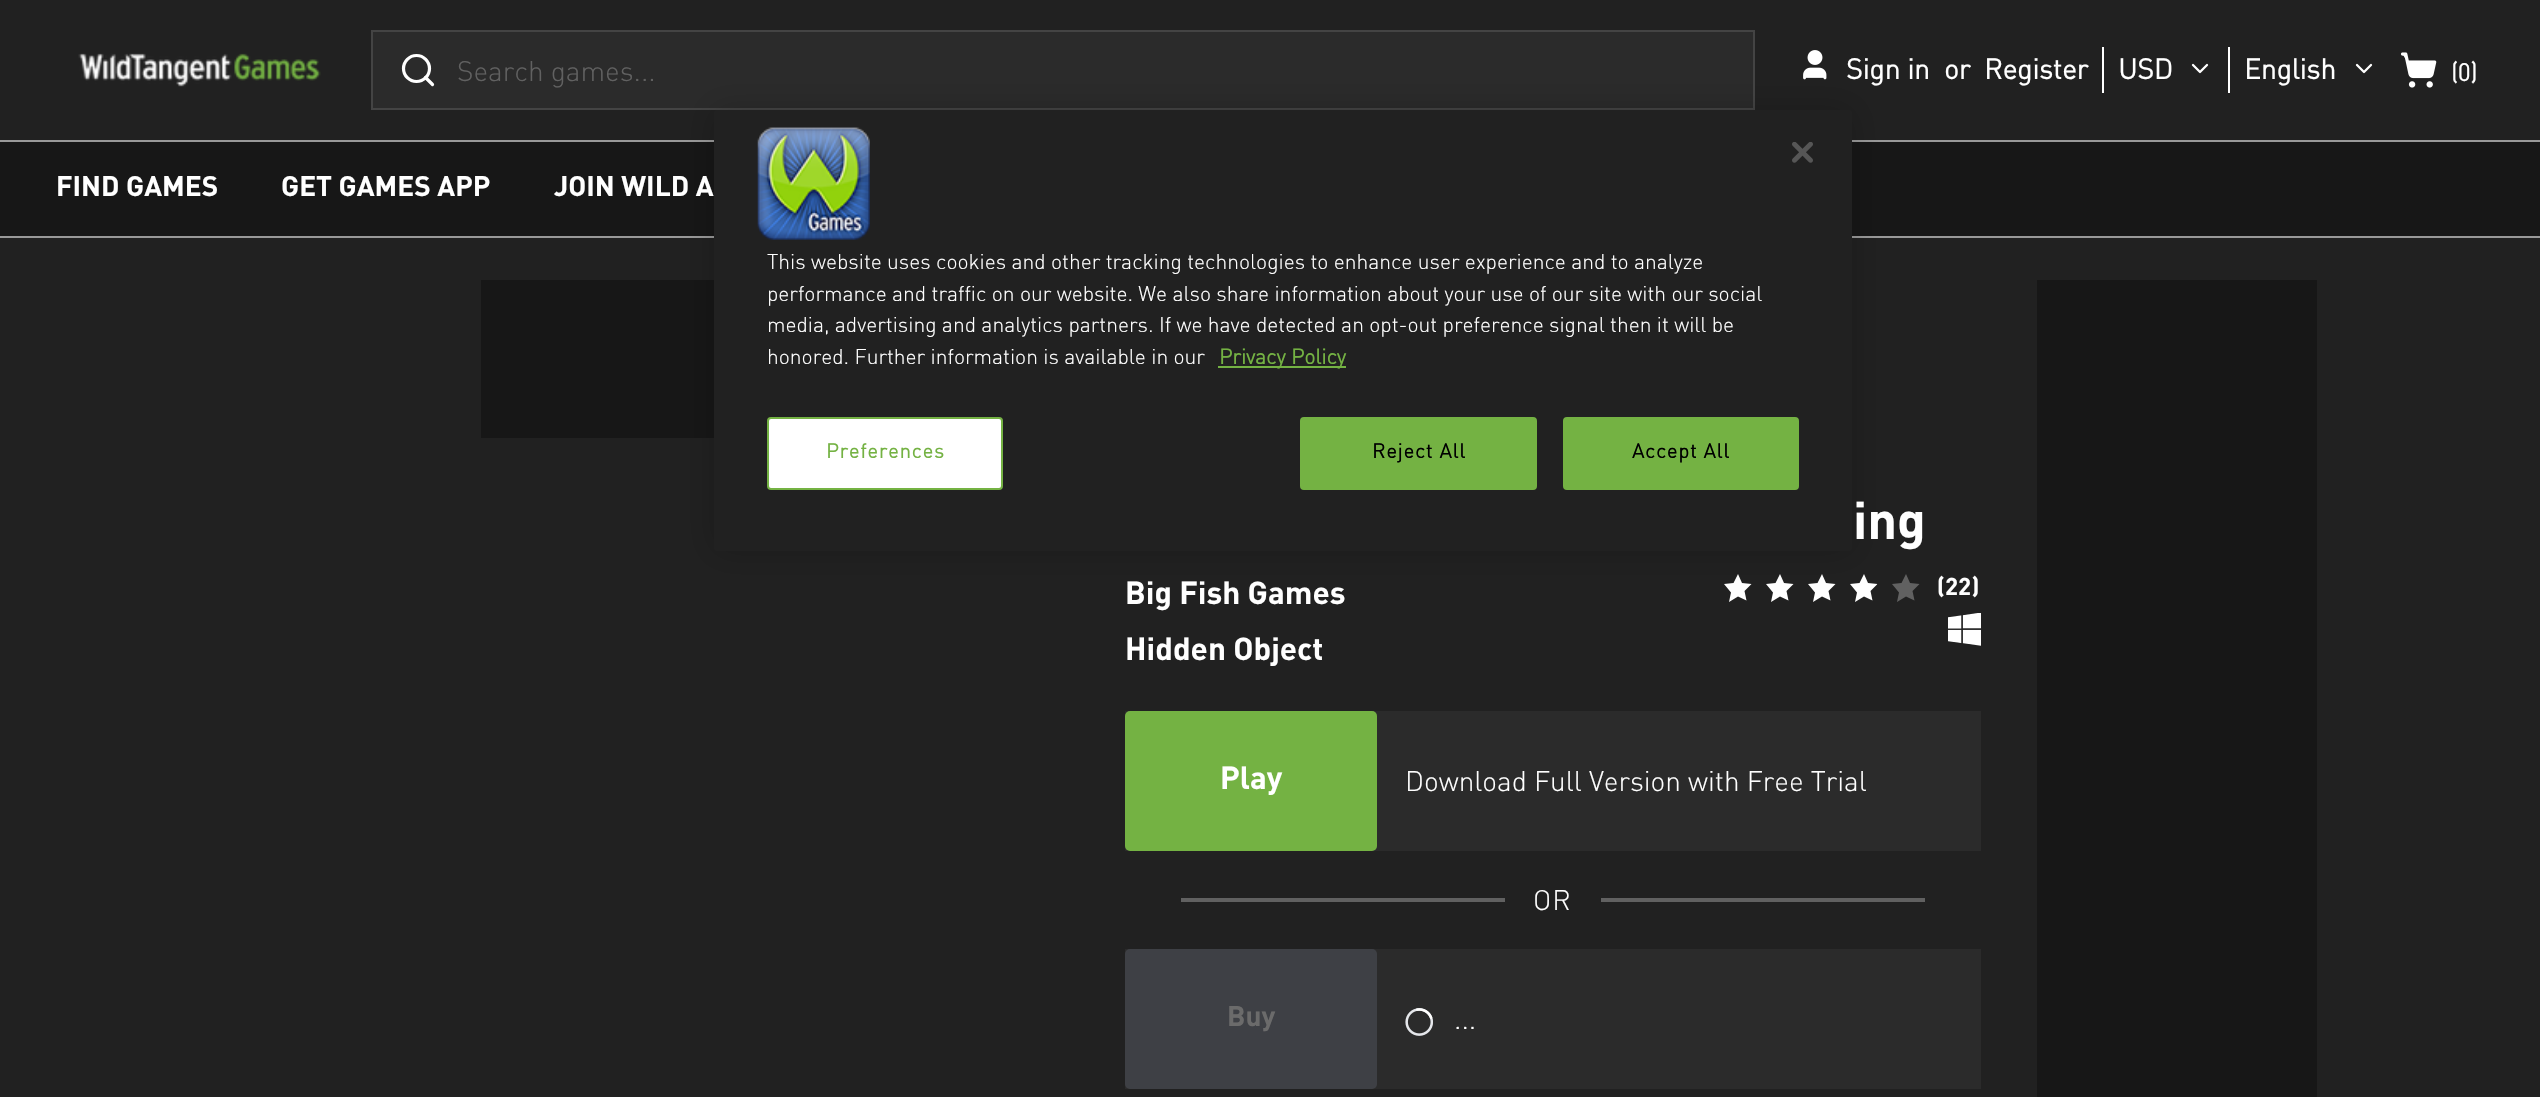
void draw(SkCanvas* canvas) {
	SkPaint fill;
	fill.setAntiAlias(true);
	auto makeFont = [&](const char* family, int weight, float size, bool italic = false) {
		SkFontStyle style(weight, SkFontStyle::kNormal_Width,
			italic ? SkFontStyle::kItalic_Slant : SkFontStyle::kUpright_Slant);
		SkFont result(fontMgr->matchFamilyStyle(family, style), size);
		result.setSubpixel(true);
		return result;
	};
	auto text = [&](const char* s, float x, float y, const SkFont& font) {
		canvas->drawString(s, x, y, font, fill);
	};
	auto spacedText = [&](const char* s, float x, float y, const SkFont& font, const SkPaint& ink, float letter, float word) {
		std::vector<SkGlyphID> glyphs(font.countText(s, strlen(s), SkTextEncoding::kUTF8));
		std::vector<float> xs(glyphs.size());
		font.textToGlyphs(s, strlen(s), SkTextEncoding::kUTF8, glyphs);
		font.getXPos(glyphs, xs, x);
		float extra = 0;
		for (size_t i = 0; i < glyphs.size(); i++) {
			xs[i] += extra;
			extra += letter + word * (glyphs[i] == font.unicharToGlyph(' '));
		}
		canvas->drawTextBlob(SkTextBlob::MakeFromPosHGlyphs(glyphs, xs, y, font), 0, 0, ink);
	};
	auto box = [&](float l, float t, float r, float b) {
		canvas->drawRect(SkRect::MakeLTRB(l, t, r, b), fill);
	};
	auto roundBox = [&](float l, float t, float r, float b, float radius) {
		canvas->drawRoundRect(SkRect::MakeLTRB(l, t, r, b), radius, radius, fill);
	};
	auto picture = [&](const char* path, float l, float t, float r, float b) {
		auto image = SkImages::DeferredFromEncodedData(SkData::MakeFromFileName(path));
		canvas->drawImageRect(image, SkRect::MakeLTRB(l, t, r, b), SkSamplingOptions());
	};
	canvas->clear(0xFF212121);
	picture("image0.png", 78, 53, 321, 87);
	fill.setColor(0xFF2B2B2B);
	canvas->drawRect(SkRect::MakeLTRB(372, 31, 1754, 109), fill);
	fill.setStyle(SkPaint::kStroke_Style);
	fill.setStrokeWidth(2);
	fill.setColor(0xFF444444);
	canvas->drawRect(SkRect::MakeLTRB(372, 31, 1754, 109), fill);
	fill.setStrokeWidth(3.2f);
	fill.setStrokeCap(SkPaint::kRound_Cap);
	fill.setStrokeJoin(SkPaint::kRound_Join);
	fill.setColor(0xFFFFFFFF);
	canvas->drawPath(SkPathBuilder().moveTo(432.5f, 84.5f).lineTo(425.5f, 77.5f).detach(), fill);
	fill.setStrokeCap(SkPaint::kButt_Cap);
	fill.setStrokeJoin(SkPaint::kMiter_Join);
	canvas->drawCircle(416.5f, 68.5f, 13, fill);
	picture("image1.png", 1803, 50, 1827, 80);
	fill.setStyle(SkPaint::kFill_Style);
	box(2228, 47, 2230, 93);
	box(2102, 47, 2104, 93);
	fill.setStyle(SkPaint::kStroke_Style);
	fill.setStrokeWidth(2.3f);
	fill.setStrokeCap(SkPaint::kRound_Cap);
	fill.setStrokeJoin(SkPaint::kRound_Join);
	canvas->drawPath(SkPathBuilder().moveTo(2193, 65).lineTo(2200, 72).lineTo(2207, 65).detach(), fill);
	canvas->drawPath(SkPathBuilder().moveTo(2357, 65).lineTo(2364, 72).lineTo(2371, 65).detach(), fill);
	picture("image2.png", 2401, 52, 2437, 88);
	fill.setStyle(SkPaint::kFill_Style);
	fill.setColor(0xFF171717);
	box(0, 142, 2540, 236);
	fill.setColor(0xFF999999);
	box(0, 140, 2540, 142);
	box(0, 236, 2540, 238);
	fill.setColor(0xFF171717);
	box(481, 280, 714, 438);
	fill.setColor(0xFFFFFFFF);
	canvas->drawPath(SkPathBuilder().moveTo(1738, 574).lineTo(1742, 583).lineTo(1751.5f, 584).lineTo(1744.5f, 591).lineTo(1746.5f, 600.5f).lineTo(1738, 596.5f).lineTo(1729, 602).lineTo(1731, 592.5f).lineTo(1724, 584).lineTo(1733.5f, 583).close().detach(), fill);
	canvas->drawPath(SkPathBuilder().moveTo(1780, 574).lineTo(1784, 583).lineTo(1793.5f, 584).lineTo(1786.5f, 591).lineTo(1788.5f, 600.5f).lineTo(1780, 596.5f).lineTo(1771, 602).lineTo(1773, 592.5f).lineTo(1766, 584).lineTo(1775.5f, 583).close().detach(), fill);
	canvas->drawPath(SkPathBuilder().moveTo(1822, 574).lineTo(1826, 583).lineTo(1835.5f, 584).lineTo(1828.5f, 591).lineTo(1830.5f, 600.5f).lineTo(1822, 596.5f).lineTo(1813, 602).lineTo(1815, 592.5f).lineTo(1808, 584).lineTo(1817.5f, 583).close().detach(), fill);
	{
		const SkColor colors[] = {0xFFFFFFFF, 0xFF616161};
		const float stops[] = {0.95f, 0.95f};
		const SkPoint ends[] = {{1850, 574}, {1878, 574}};
		fill.setShader(SkGradientShader::MakeLinear(ends, colors, stops, 2, SkTileMode::kClamp));
		fill.setAlpha(255);
	}
	canvas->drawPath(SkPathBuilder().moveTo(1864, 574).lineTo(1868, 583).lineTo(1877.5f, 584).lineTo(1870.5f, 591).lineTo(1872.5f, 600.5f).lineTo(1864, 596.5f).lineTo(1855, 602).lineTo(1857, 592.5f).lineTo(1850, 584).lineTo(1859.5f, 583).close().detach(), fill);
	fill.setShader(nullptr);
	fill.setColor(0xFF616161);
	canvas->drawPath(SkPathBuilder().moveTo(1906, 574).lineTo(1910, 583).lineTo(1919.5f, 584).lineTo(1912.5f, 591).lineTo(1914.5f, 600.5f).lineTo(1906, 596.5f).lineTo(1897, 602).lineTo(1899, 592.5f).lineTo(1892, 584).lineTo(1901.5f, 583).close().detach(), fill);
	fill.setColor(0x33000000);
	fill.setMaskFilter(SkMaskFilter::MakeBlur(kNormal_SkBlurStyle, 16));
	canvas->drawRoundRect(SkRect::MakeLTRB(714, 110, 1852, 551), 4, 4, fill);
	fill.setMaskFilter(nullptr);
	fill.setColor(0xFF212121);
	roundBox(714, 110, 1852, 551, 4);
	picture("image3.png", 1792, 142, 1813, 163);
	picture("image4.png", 757, 127, 870, 240);
	fill.setColor(0xFF74B243);
	box(1218, 366, 1346, 368);
	fill.setColor(0xFFFFFFFF);
	canvas->drawRoundRect(SkRect::MakeLTRB(768, 418, 1002, 489), 3, 3, fill);
	fill.setStyle(SkPaint::kStroke_Style);
	fill.setStrokeWidth(2);
	fill.setStrokeCap(SkPaint::kButt_Cap);
	fill.setStrokeJoin(SkPaint::kMiter_Join);
	fill.setColor(0xFF74B243);
	canvas->drawRoundRect(SkRect::MakeLTRB(768, 418, 1002, 489), 3, 3, fill);
	fill.setStyle(SkPaint::kFill_Style);
	canvas->drawRoundRect(SkRect::MakeLTRB(1301, 418, 1536, 489), 3, 3, fill);
	fill.setStyle(SkPaint::kStroke_Style);
	canvas->drawRoundRect(SkRect::MakeLTRB(1301, 418, 1536, 489), 3, 3, fill);
	fill.setStyle(SkPaint::kFill_Style);
	canvas->drawRoundRect(SkRect::MakeLTRB(1564, 418, 1798, 489), 3, 3, fill);
	fill.setStyle(SkPaint::kStroke_Style);
	canvas->drawRoundRect(SkRect::MakeLTRB(1564, 418, 1798, 489), 3, 3, fill);
	picture("image5.png", 1948, 613, 1981, 646);
	fill.setStyle(SkPaint::kFill_Style);
	fill.setColor(0xFF2B2B2B);
	box(1125, 711, 1981, 851);
	fill.setColor(0xFF74B243);
	roundBox(1125, 711, 1377, 851, 5);
	fill.setColor(0xFF616161);
	box(1181, 898, 1505, 902);
	box(1601, 898, 1925, 902);
	fill.setColor(0xFF2B2B2B);
	box(1125, 949, 1981, 1089);
	fill.setColor(0xFF3E4045);
	roundBox(1125, 949, 1377, 1089, 5);
	picture("image6.png", 1405, 1008, 1433, 1036);
	fill.setColor(0xFF171717);
	box(2037, 280, 2317, 1097);
	auto font1 = makeFont("DIN", 300, 28);
	fill.setColor(0xFF616161);
	text("Search games...", 457, 81, font1);
	auto font2 = makeFont("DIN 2", 700, 28);
	fill.setColor(0xFFFFFFFF);
	text("Sign in", 1846, 79, font2);
	text("or", 1944, 79, font2);
	text("Register", 1984, 79, font2);
	text("USD", 2118, 79, font2);
	text("English", 2244, 79, font2);
	auto font3 = makeFont("DIN 2", 700, 24);
	text("(0)", 2451, 81, font3);
	auto font4 = makeFont("DIN", 700, 28);
	text("FIND GAMES", 56, 196, font4);
	text("GET GAMES APP", 281, 196, font4);
	text("JOIN WILD A", 554, 196, font4);
	auto font5 = makeFont("DIN", 300, 21.05f);
	text("This website uses cookies and other tracking technologies to enhance user experience and to analyze", 767, 269, font5);
	text("performance and traffic on our website. We also share information about your use of our site with our social", 767, 301, font5);
	text("media, advertising and analytics partners. If we have detected an opt-out preference signal then it will be", 767, 332, font5);
	text("honored. Further information is available in our", 767, 364, font5);
	auto font6 = makeFont("DIN 2", 700, 21.05f);
	fill.setColor(0xFF74B243);
	text("Privacy Policy", 1219, 364, font6);
	auto font7 = makeFont("DIN 2", 700, 20);
	spacedText("Preferences", 826, 458, font7, fill, 1, 0);
	fill.setColor(0xFF000000);
	spacedText("Reject All", 1372, 458, font7, fill, 1, 0);
	spacedText("Accept All", 1632, 458, font7, fill, 1, 0);
	auto font8 = makeFont("DIN", 700, 52);
	fill.setColor(0xFFFFFFFF);
	text("ing", 1853, 539, font8);
	auto font9 = makeFont("DIN", 700, 31.5f);
	text("Big Fish Games", 1125, 604, font9);
	text("Hidden Object", 1125, 660, font9);
	auto font10 = makeFont("DIN", 700, 24);
	text("(22)", 1937, 595, font10);
	text("Play", 1220, 789, font9);
	text("Download Full Version with Free Trial", 1405, 791, font1);
	spacedText("OR", 1533, 910, font1, fill, 1, 0);
	fill.setColor(0xFF6B6B6B);
	text("Buy", 1227, 1026, font4);
	fill.setColor(0xFFFFFFFF);
	text("...", 1454, 1029, font1);
}
